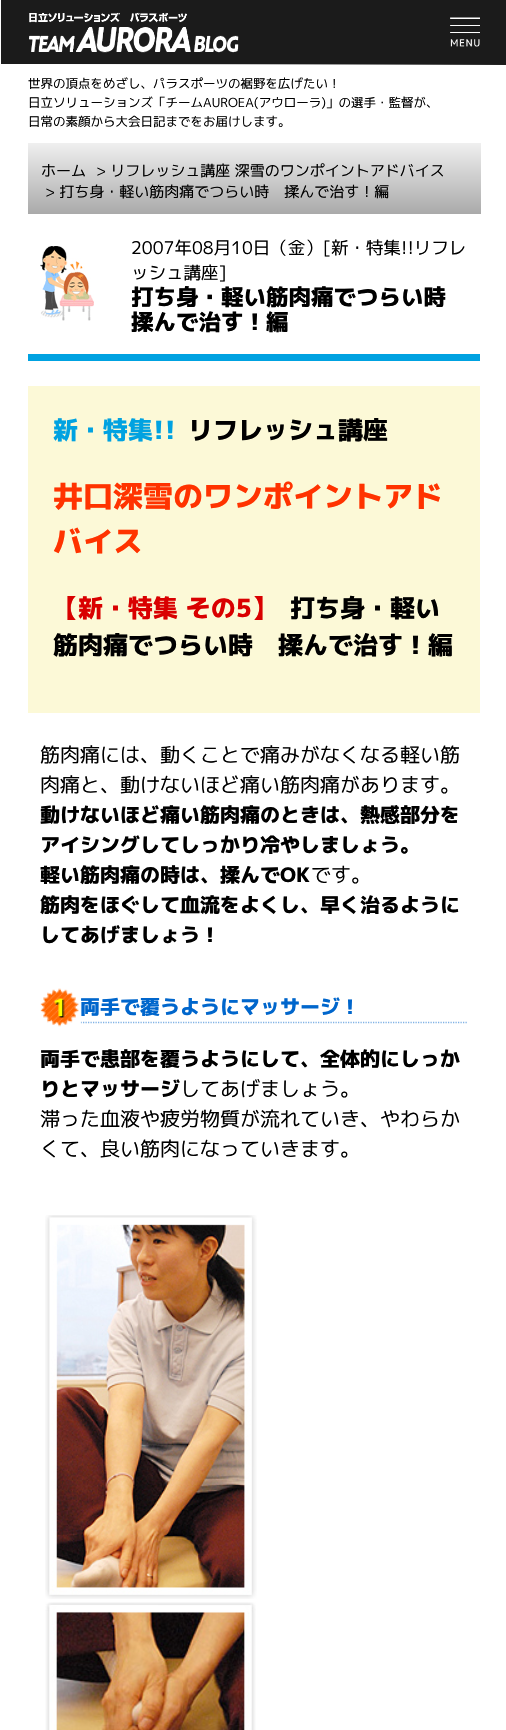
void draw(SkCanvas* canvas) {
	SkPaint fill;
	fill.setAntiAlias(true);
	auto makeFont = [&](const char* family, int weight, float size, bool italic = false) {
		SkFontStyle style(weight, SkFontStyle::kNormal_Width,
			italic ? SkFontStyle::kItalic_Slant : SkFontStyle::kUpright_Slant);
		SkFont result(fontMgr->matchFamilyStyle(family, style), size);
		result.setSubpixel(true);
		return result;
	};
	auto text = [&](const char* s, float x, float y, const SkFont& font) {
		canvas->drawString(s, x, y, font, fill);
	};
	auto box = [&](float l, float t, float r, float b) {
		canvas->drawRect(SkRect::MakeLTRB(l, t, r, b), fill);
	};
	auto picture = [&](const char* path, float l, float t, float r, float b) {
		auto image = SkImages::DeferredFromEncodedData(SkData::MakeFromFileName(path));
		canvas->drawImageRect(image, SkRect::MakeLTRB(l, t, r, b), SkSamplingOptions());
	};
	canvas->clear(0xFFFFFFFF);
	fill.setColor(0xFF1B1B1B);
	canvas->drawPath(SkPathBuilder().moveTo(1, 0).lineTo(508, 0).lineTo(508, 65).lineTo(1, 64).close().detach(), fill);
	picture("image0.png", 29, 12, 239, 53);
	picture("image1.png", 450, 17, 480, 47);
	fill.setColor(0xFFFFFFFF);
	canvas->drawPath(SkPathBuilder().moveTo(1, 64).lineTo(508, 65).lineTo(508, 131).lineTo(1, 131).close().detach(), fill);
	{
		const SkColor colors[] = {0xFFEFEFEF, 0xFFAAAAAA};
		const float stops[] = {0, 1};
		const SkPoint ends[] = {{254, 143}, {254, 214}};
		fill.setShader(SkGradientShader::MakeLinear(ends, colors, stops, 2, SkTileMode::kClamp));
		fill.setAlpha(255);
	}
	box(28, 143, 481, 214);
	fill.setShader(nullptr);
	fill.setColor(0xFF00A2E1);
	box(28, 354, 480, 361);
	picture("image2.png", 40, 246, 94, 321);
	fill.setColor(0xFFFCF9D7);
	canvas->drawPath(SkPathBuilder().moveTo(28, 708).lineTo(28, 386).lineTo(480, 386).lineTo(480, 713).lineTo(28, 713).close().detach(), fill);
	fill.setStyle(SkPaint::kStroke_Style);
	fill.setStrokeWidth(1.3f);
	fill.setColor(0xFF7FB2E5);
	fill.setPathEffect(SkDashPathEffect::Make({{1.25f, 1.25f}}, 0));
	canvas->drawPath(SkPathBuilder().moveTo(80.5f, 1022.5f).lineTo(467.5f, 1022.5f).detach(), fill);
	fill.setPathEffect(nullptr);
	picture("image3.png", 40, 988, 81, 1027);
	picture("image4.png", 45, 1215, 257, 1599);
	picture("image5.png", 45, 1602, 256, 1730);
	auto font1 = makeFont("M PLUS 1p", 400, 12.5f);
	fill.setStyle(SkPaint::kFill_Style);
	fill.setColor(0xFF000000);
	text("世界の頂点をめざし、パラスポーツの裾野を広げたい！", 28, 88, font1);
	text("日立ソリューションズ「チームAUROEA(アウローラ)」の選手・監督が、", 28, 107, font1);
	text("日常の素顔から大会日記までをお届けします。", 28, 126, font1);
	auto font2 = makeFont("M PLUS 1p", 400, 15);
	text("ホーム", 41, 176, font2);
	text("> リフレッシュ講座 深雪のワンポイントアドバイス", 96, 176, font2);
	text("> 打ち身・軽い筋肉痛でつらい時　揉んで治す！編", 45, 197, font2);
	auto font3 = makeFont("M PLUS 1p", 400, 17.5f);
	text("2007年08月10日（金）[新・特集!!リフレ", 131, 254, font3);
	text("ッシュ講座]", 131, 279, font3);
	auto font4 = makeFont("M PLUS 1p", 800, 22.5f);
	text("打ち身・軽い筋肉痛でつらい時", 131, 305, font4);
	text("揉んで治す！編", 131, 330, font4);
	auto font5 = makeFont("M PLUS 1p", 800, 25);
	fill.setColor(0xFF00A2E1);
	text("新・特集!!", 53, 439, font5);
	fill.setColor(0xFF000000);
	text("リフレッシュ講座", 188, 439, font5);
	auto font6 = makeFont("M PLUS 1p", 800, 30);
	fill.setColor(0xFFFF3300);
	text("井口深雪のワンポイントアド", 53, 507, font6);
	text("バイス", 53, 552, font6);
	fill.setColor(0xFFD90000);
	text("【新・特集 その5】", 53, 617, font5);
	fill.setColor(0xFF000000);
	text("打ち身・軽い", 290, 617, font5);
	text("筋肉痛でつらい時　揉んで治す！編", 53, 654, font5);
	auto font7 = makeFont("M PLUS 1p", 400, 20);
	text("筋肉痛には、動くことで痛みがなくなる軽い筋", 40, 762, font7);
	text("肉痛と、動けないほど痛い筋肉痛があります。", 40, 792, font7);
	auto font8 = makeFont("M PLUS 1p", 800, 20);
	text("動けないほど痛い筋肉痛のときは、熱感部分を", 40, 822, font8);
	text("アイシングしてしっかり冷やしましょう。", 40, 852, font8);
	text("軽い筋肉痛の時は、揉んでOK", 40, 882, font8);
	text("です。", 311, 882, font7);
	text("筋肉をほぐして血流をよくし、早く治るように", 40, 912, font8);
	text("してあげましょう！", 40, 942, font8);
	fill.setColor(0xFF0066CC);
	text("両手で覆うようにマッサージ！", 80, 1014, font8);
	fill.setColor(0xFF000000);
	text("両手で患部を覆うようにして、全体的にしっか", 40, 1066, font8);
	text("りとマッサージ", 40, 1096, font8);
	text("してあげましょう。", 180, 1096, font7);
	text("滞った血液や疲労物質が流れていき、やわらか", 40, 1126, font7);
	text("くて、良い筋肉になっていきます。", 40, 1156, font7);
}
